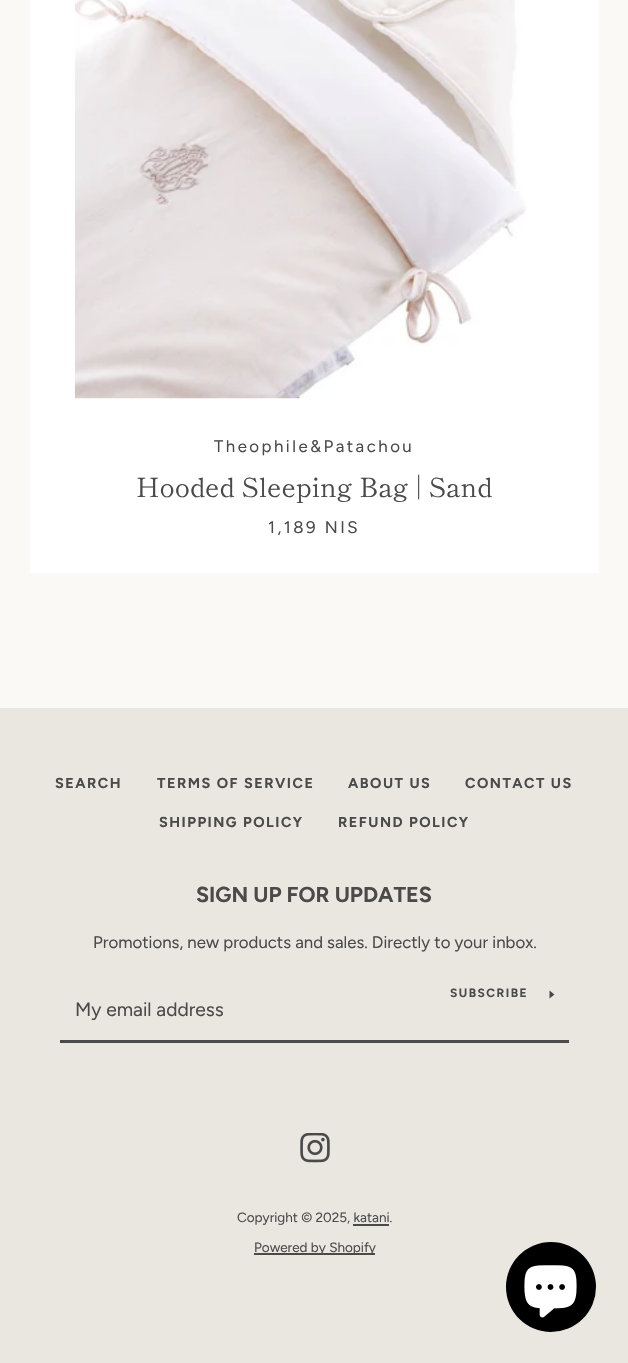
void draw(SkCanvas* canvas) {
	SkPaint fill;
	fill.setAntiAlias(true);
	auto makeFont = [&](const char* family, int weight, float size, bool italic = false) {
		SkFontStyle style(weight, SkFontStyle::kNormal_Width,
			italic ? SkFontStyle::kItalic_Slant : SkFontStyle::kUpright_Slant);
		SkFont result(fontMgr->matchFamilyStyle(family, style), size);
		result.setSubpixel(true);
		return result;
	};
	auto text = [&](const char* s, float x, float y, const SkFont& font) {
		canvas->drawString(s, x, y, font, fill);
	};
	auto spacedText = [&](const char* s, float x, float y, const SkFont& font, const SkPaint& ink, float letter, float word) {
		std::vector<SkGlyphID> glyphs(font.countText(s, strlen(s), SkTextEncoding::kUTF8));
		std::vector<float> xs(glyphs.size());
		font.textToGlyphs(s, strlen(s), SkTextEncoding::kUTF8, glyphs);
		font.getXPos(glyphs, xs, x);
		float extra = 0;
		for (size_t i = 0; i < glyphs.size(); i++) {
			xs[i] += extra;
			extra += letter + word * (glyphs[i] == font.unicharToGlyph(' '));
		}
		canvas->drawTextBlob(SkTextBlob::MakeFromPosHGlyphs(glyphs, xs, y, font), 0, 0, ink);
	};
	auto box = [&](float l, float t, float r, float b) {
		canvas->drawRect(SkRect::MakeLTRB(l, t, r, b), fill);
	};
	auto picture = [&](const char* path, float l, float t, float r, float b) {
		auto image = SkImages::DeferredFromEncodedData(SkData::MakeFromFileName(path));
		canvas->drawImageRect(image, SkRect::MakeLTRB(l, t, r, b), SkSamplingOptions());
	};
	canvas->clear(0xFFEAE7E0);
	fill.setColor(0xFFFAF9F6);
	box(0, 0, 628, 708);
	fill.setColor(0xFFFFFFFF);
	box(30, 0, 599, 573);
	picture("image0.png", 75, 0, 526, 399);
	fill.setColor(0xFF4A4A4A);
	box(60, 1040, 569, 1043);
	canvas->drawPath(SkPathBuilder().moveTo(554.5f, 994.5f).lineTo(549.5f, 998.5f).lineTo(549.5f, 990.5f).close().detach(), fill);
	picture("image1.png", 300, 1133, 330, 1163);
	box(353, 1224, 389, 1226);
	box(254, 1253, 375, 1255);
	fill.setColor(0xFF000000);
	canvas->drawCircle(551, 1287, 45, fill);
	picture("image2.png", 524, 1265, 577, 1318);
	auto font1 = makeFont("Figtree", 400, 16.8f);
	fill.setColor(0xFF4A4A4A);
	spacedText("Theophile&Patachou", 214, 452, font1, fill, 2.5f, 0);
	auto font2 = makeFont("Shippori Mincho", 400, 26.4f);
	text("Hooded Sleeping Bag | Sand", 136, 497, font2);
	spacedText("1,189 NIS", 268, 533, font1, fill, 2.5f, 0);
	auto font3 = makeFont("Figtree", 700, 14.4f);
	spacedText("SEARCH", 55, 788, font3, fill, 1.5f, 0);
	spacedText("TERMS OF SERVICE", 157, 788, font3, fill, 1.5f, 0);
	spacedText("ABOUT US", 348, 788, font3, fill, 1.5f, 0);
	spacedText("CONTACT US", 465, 788, font3, fill, 1.5f, 0);
	spacedText("SHIPPING POLICY", 159, 827, font3, fill, 1.5f, 0);
	spacedText("REFUND POLICY", 338, 827, font3, fill, 1.5f, 0);
	auto font4 = makeFont("Figtree", 700, 21.6f);
	text("SIGN UP FOR UPDATES", 196, 902, font4);
	text("Promotions, new products and sales. Directly to your inbox.", 93, 948, font1);
	auto font5 = makeFont("Figtree", 700, 12);
	spacedText("SUBSCRIBE", 450, 997, font5, fill, 1.5f, 0);
	auto font6 = makeFont("Figtree", 400, 19.25f);
	text("My email address", 75, 1016, font6);
	auto font7 = makeFont("Figtree", 400, 13.5f);
	text("Copyright © 2025, katani.", 237, 1222, font7);
	text("Powered by Shopify", 254, 1252, font7);
}
